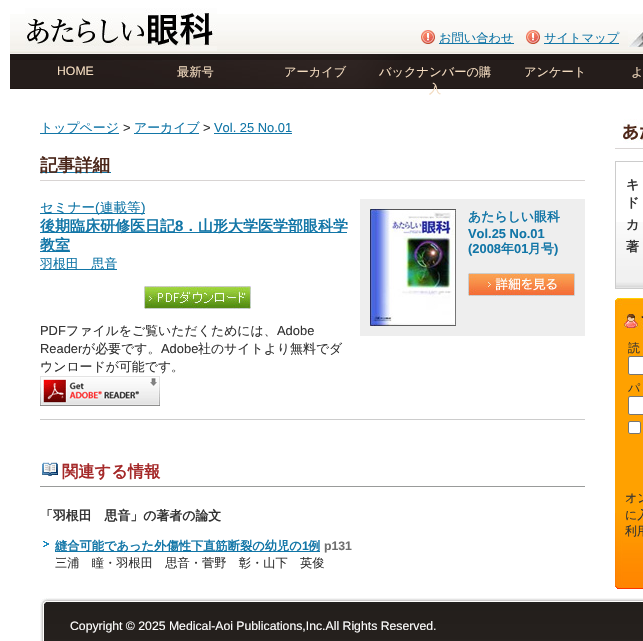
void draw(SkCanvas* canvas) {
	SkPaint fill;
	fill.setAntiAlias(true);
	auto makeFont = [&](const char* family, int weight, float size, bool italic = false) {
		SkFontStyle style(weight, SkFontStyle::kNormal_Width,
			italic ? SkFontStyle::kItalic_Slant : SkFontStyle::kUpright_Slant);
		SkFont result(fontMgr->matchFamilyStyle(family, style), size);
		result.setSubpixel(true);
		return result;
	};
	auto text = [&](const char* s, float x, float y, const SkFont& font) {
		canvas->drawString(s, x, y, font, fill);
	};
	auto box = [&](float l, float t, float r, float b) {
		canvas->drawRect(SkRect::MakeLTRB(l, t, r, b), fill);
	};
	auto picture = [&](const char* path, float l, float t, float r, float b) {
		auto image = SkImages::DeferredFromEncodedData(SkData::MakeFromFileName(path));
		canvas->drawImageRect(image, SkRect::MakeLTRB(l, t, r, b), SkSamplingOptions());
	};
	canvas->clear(0xFFFFFFFF);
	picture("image0.png", 10, 14, 643, 54);
	picture("image1.png", 25, 8, 217, 51);
	picture("image2.png", 421, 30, 435, 44);
	fill.setColor(0xFF1276A7);
	box(439, 43, 514, 44);
	picture("image2.png", 526, 30, 540, 44);
	box(544, 43, 619, 44);
	picture("image3.png", 628, 30, 643, 47);
	picture("image4.png", 10, 54, 643, 89);
	box(40, 133, 119, 134);
	box(134, 133, 199, 134);
	box(214, 133, 292, 134);
	fill.setColor(0xFFD8D4D3);
	box(40, 180, 585, 181);
	fill.setColor(0xFF1276A7);
	box(40, 172, 111, 173);
	fill.setColor(0xFFEEEEEE);
	box(360, 199, 585, 336);
	picture("image5.png", 370, 209, 456, 326);
	picture("image6.png", 468, 273, 575, 296);
	fill.setColor(0xFF1276A7);
	box(40, 213, 145, 214);
	box(40, 232, 347, 233);
	box(40, 251, 70, 252);
	box(40, 269, 117, 270);
	picture("image7.png", 144, 286, 251, 309);
	picture("image8.png", 40, 376, 160, 406);
	fill.setColor(0xFFCCCCCC);
	box(40, 419, 585, 420);
	picture("image9.png", 42, 462, 58, 476);
	fill.setColor(0xFF999B9A);
	box(40, 486, 585, 487);
	picture("image10.png", 43, 541, 49, 547);
	fill.setColor(0xFF1276A7);
	box(55, 551, 320, 552);
	picture("image11.png", 615, 119, 643, 149);
	picture("image12.png", 616, 222, 643, 288);
	fill.setStyle(SkPaint::kStroke_Style);
	fill.setStrokeWidth(1);
	fill.setColor(0xFFCCCCCC);
	canvas->drawRect(SkRect::MakeLTRB(615.5f, 161.5f, 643.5f, 288.5f), fill);
	fill.setStyle(SkPaint::kFill_Style);
	fill.setColor(0xFFFFA100);
	box(615, 330, 643, 513);
	picture("image13.png", 615, 298, 643, 330);
	picture("image14.png", 615, 513, 643, 589);
	fill.setColor(0xFFFFFFFF);
	canvas->drawRoundRect(SkRect::MakeLTRB(628.5f, 356.5f, 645.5f, 374.5f), 1.5f, 1.5f, fill);
	fill.setStyle(SkPaint::kStroke_Style);
	fill.setColor(0xFF767676);
	canvas->drawRoundRect(SkRect::MakeLTRB(628.5f, 356.5f, 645.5f, 374.5f), 1.5f, 1.5f, fill);
	fill.setStyle(SkPaint::kFill_Style);
	fill.setColor(0xFFFFFFFF);
	canvas->drawRoundRect(SkRect::MakeLTRB(628.5f, 396.5f, 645.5f, 414.5f), 1.5f, 1.5f, fill);
	fill.setStyle(SkPaint::kStroke_Style);
	fill.setColor(0xFF767676);
	canvas->drawRoundRect(SkRect::MakeLTRB(628.5f, 396.5f, 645.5f, 414.5f), 1.5f, 1.5f, fill);
	fill.setStyle(SkPaint::kFill_Style);
	fill.setColor(0xFFFFFFFF);
	canvas->drawRoundRect(SkRect::MakeLTRB(628.5f, 421.5f, 640.5f, 433.5f), 1.5f, 1.5f, fill);
	fill.setStyle(SkPaint::kStroke_Style);
	fill.setColor(0xFF767676);
	canvas->drawRoundRect(SkRect::MakeLTRB(628.5f, 421.5f, 640.5f, 433.5f), 1.5f, 1.5f, fill);
	picture("image15.png", 40, 598, 643, 641);
	auto font1 = makeFont("WenQuanYi Zen Hei", 500, 12.25f);
	fill.setStyle(SkPaint::kFill_Style);
	fill.setColor(0xFF1276A7);
	text("お問い合わせ", 439, 42, font1);
	text("サイトマップ", 544, 42, font1);
	auto font2 = makeFont("Liberation Sans", 400, 12.25f);
	fill.setColor(0xFFF3DBBF);
	text("HOME", 57, 75, font2);
	text("最新号", 177, 76, font1);
	text("アーカイブ", 284, 76, font1);
	text("バックナンバーの購", 379, 76, font1);
	text("入", 429, 93, font1);
	text("アンケート", 524, 76, font1);
	text("よ", 631, 76, font1);
	auto font3 = makeFont("WenQuanYi Zen Hei", 500, 12.9f);
	fill.setColor(0xFF1276A7);
	text("トップページ", 40, 132, font3);
	auto font4 = makeFont("Liberation Sans", 400, 12.9f);
	fill.setColor(0xFF333333);
	text(">", 123, 132, font4);
	fill.setColor(0xFF1276A7);
	text("アーカイブ", 134, 132, font3);
	fill.setColor(0xFF333333);
	text(">", 203, 132, font4);
	fill.setColor(0xFF1276A7);
	text("Vol. 25 No.01", 214, 132, font4);
	auto font5 = makeFont("WenQuanYi Zen Hei", 700, 17.5f);
	fill.setColor(0xFF4B271B);
	text("記事詳細", 40, 171, font5);
	auto font6 = makeFont("WenQuanYi Zen Hei", 700, 12.9f);
	fill.setColor(0xFF1276A7);
	text("あたらしい眼科", 468, 221, font6);
	auto font7 = makeFont("Liberation Sans", 700, 12.9f);
	text("Vol.25 No.01", 468, 238, font7);
	text("(2008", 468, 253, font7);
	text("年", 501, 253, font6);
	text("01", 514, 253, font7);
	text("月号", 528, 253, font6);
	text(")", 554, 253, font7);
	auto font8 = makeFont("WenQuanYi Zen Hei", 500, 13.5f);
	text("セミナー", 40, 212, font8);
	auto font9 = makeFont("Liberation Sans", 400, 13.5f);
	text("(", 95, 212, font9);
	text("連載等", 100, 212, font8);
	text(")", 141, 212, font9);
	auto font10 = makeFont("WenQuanYi Zen Hei", 700, 15);
	text("後期臨床研修医日記", 40, 231, font10);
	auto font11 = makeFont("Liberation Sans", 700, 15);
	text("8", 175, 231, font11);
	text("．山形大学医学部眼科学", 183, 231, font10);
	text("教室", 40, 250, font10);
	text("羽根田　思音", 40, 268, font3);
	fill.setColor(0xFF333333);
	text("PDF", 40, 335, font4);
	text("ファイルをご覧いただくためには、", 66, 335, font3);
	text("Adobe", 277, 335, font4);
	text("Reader", 40, 353, font4);
	text("が必要です。", 82, 353, font3);
	text("Adobe", 161, 353, font4);
	text("社のサイトより無料でダ", 198, 353, font3);
	text("ウンロードが可能です。", 40, 371, font3);
	auto font12 = makeFont("WenQuanYi Zen Hei", 700, 16.25f);
	fill.setColor(0xFFA52929);
	text("関連する情報", 62, 477, font12);
	fill.setColor(0xFF333333);
	text("「羽根田　思音」の著者の論文", 40, 520, font6);
	auto font13 = makeFont("WenQuanYi Zen Hei", 700, 12.25f);
	fill.setColor(0xFF1276A7);
	text("縫合可能であった外傷性下直筋断裂の幼児の", 55, 550, font13);
	auto font14 = makeFont("Liberation Sans", 700, 12.25f);
	text("1", 302, 550, font14);
	text("例", 308, 550, font13);
	fill.setColor(0xFF6F6F6F);
	text("p131", 324, 550, font14);
	fill.setColor(0xFF333333);
	text("三浦　瞳・羽根田　思音・菅野　彰・山下　英俊", 55, 567, font1);
	auto font15 = makeFont("WenQuanYi Zen Hei", 700, 13);
	text("キ", 626, 189, font15);
	text("ド", 626, 207, font15);
	text("カ", 626, 229, font15);
	text("著", 626, 251, font15);
	auto font16 = makeFont("WenQuanYi Zen Hei", 500, 12);
	text("読", 628, 352, font16);
	text("パ", 628, 392, font16);
	text("オン", 625, 502, font16);
	text("に入", 625, 519, font16);
	text("利用", 625, 535, font16);
	fill.setColor(0xFFFFFFFF);
	text("Copyright © 2025 Medical-Aoi Publications,Inc.All Rights Reserved.", 70, 630, font2);
}
